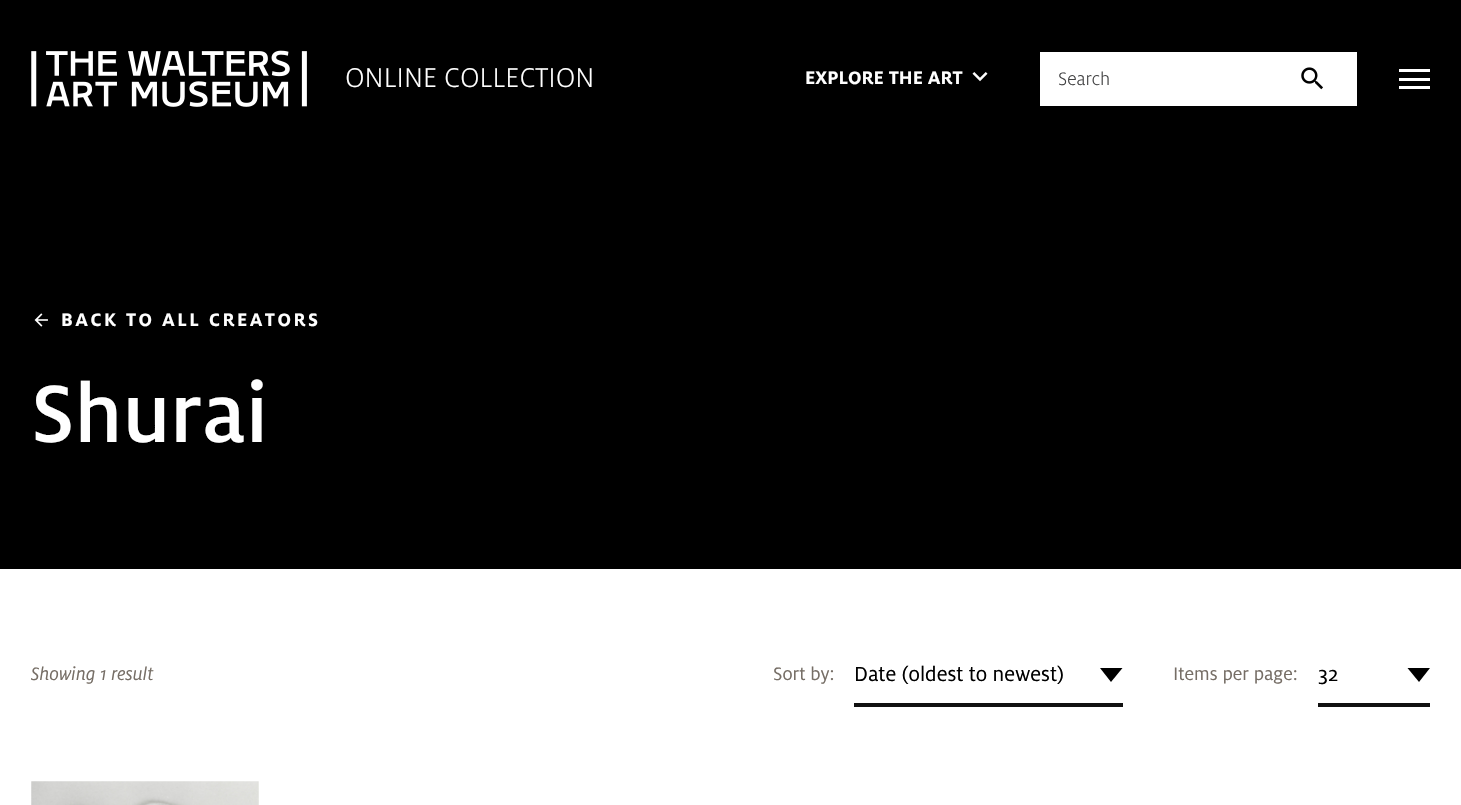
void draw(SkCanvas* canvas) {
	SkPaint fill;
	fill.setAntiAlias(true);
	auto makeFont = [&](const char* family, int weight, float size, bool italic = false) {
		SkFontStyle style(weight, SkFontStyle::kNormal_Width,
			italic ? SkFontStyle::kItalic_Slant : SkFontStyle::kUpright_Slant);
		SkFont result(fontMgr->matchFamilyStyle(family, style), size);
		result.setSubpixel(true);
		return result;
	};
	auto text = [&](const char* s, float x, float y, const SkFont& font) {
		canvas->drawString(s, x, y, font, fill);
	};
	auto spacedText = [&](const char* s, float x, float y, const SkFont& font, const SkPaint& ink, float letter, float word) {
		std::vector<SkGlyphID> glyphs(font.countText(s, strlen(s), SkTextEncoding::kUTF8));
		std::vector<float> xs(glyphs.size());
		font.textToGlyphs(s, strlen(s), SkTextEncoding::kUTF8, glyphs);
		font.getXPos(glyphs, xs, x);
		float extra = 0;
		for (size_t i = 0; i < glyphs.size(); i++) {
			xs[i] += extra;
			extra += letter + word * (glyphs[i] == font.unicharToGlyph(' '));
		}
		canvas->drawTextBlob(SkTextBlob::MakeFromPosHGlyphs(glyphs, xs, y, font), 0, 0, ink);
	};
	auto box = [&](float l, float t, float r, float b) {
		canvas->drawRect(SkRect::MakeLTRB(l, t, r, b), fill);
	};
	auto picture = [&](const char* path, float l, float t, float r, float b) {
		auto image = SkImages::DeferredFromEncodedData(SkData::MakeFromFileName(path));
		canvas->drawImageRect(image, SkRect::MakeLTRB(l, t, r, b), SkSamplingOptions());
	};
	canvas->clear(0xFFFFFFFF);
	fill.setColor(0xFF000000);
	box(0, 0, 1461, 569);
	picture("image0.png", 31, 50, 307, 107);
	picture("image1.png", 972, 72, 988, 82);
	fill.setColor(0xFFFFFFFF);
	box(1040, 52, 1357, 106);
	picture("image2.png", 1301, 67, 1323, 90);
	box(1399, 69, 1430, 72);
	box(1399, 78, 1430, 81);
	box(1399, 86, 1430, 89);
	picture("image3.png", 34, 313, 48, 327);
	fill.setColor(0xFF111111);
	box(854, 703, 1123, 707);
	fill.setColor(0xFF000000);
	canvas->drawPath(SkPathBuilder().moveTo(1100, 668).lineTo(1122.5f, 668).lineTo(1111, 682).close().detach(), fill);
	fill.setColor(0xFF111111);
	box(1318, 703, 1430, 707);
	fill.setColor(0xFF000000);
	canvas->drawPath(SkPathBuilder().moveTo(1407.5f, 668).lineTo(1430, 668).lineTo(1419, 682).close().detach(), fill);
	picture("image4.png", 31, 781, 259, 805);
	auto font1 = makeFont("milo", 300, 30);
	fill.setColor(0xFFFFFFFF);
	text("ONLINE COLLECTION", 345, 87, font1);
	auto font2 = makeFont("milo", 700, 20);
	text("EXPLORE THE ART", 805, 84, font2);
	auto font3 = makeFont("milo", 300, 20);
	fill.setColor(0xFF424243);
	text("Search", 1058, 85, font3);
	fill.setColor(0xFFFFFFFF);
	spacedText("BACK TO ALL CREATORS", 61, 326, font2, fill, 2.5f, 0);
	auto font4 = makeFont("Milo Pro", 500, 90);
	text("Shurai", 31, 442, font4);
	auto font5 = makeFont("milo", 400, 20, true);
	fill.setColor(0xFF766E66);
	text("Showing 1 result", 31, 680, font5);
	auto font6 = makeFont("milo", 400, 20);
	text("Sort by:", 773, 680, font6);
	auto font7 = makeFont("milo", 400, 22.5f);
	fill.setColor(0xFF000000);
	text("Date (oldest to newest)", 854, 681, font7);
	fill.setColor(0xFF766E66);
	text("Items per page:", 1173, 680, font6);
	fill.setColor(0xFF000000);
	text("32", 1318, 681, font7);
}
